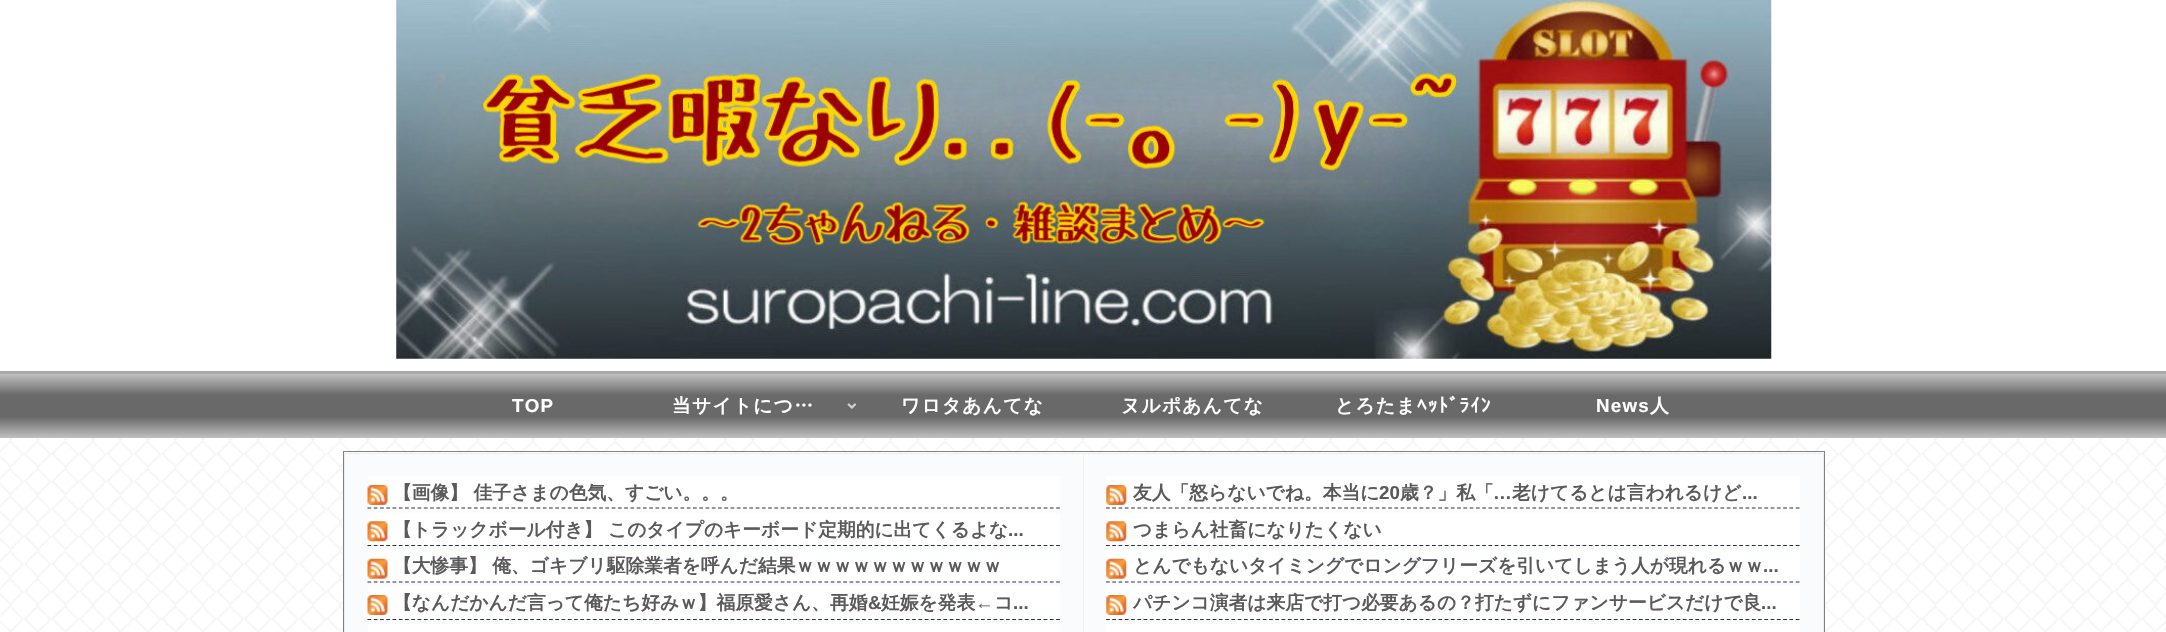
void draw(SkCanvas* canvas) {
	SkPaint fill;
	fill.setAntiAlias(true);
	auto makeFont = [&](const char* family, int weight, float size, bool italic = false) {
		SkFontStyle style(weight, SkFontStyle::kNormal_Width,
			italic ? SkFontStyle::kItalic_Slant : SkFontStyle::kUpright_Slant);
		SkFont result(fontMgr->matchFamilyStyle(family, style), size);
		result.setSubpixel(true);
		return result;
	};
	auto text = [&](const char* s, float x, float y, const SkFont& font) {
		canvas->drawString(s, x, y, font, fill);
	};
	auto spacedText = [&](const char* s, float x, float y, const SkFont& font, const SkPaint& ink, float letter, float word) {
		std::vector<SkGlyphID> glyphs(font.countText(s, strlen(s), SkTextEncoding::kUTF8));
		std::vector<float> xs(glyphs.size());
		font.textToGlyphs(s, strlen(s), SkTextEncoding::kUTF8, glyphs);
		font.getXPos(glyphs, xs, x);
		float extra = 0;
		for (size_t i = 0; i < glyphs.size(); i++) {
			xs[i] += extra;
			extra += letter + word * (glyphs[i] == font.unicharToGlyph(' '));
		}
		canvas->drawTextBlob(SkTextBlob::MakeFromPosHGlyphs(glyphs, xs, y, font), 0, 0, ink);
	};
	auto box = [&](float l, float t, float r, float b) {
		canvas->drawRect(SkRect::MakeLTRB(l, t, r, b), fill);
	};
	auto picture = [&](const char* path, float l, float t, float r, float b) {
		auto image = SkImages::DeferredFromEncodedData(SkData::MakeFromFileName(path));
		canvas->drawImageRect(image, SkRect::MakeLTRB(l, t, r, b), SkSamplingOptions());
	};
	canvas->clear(0xFFFFFFFF);
	picture("image0.png", 0, 438, 2166, 632);
	picture("image1.png", 396, 0, 1772, 359);
	{
		const SkColor colors[] = {0xFFC0C0C0, 0xFF696969, 0xFF696969, 0xFFC0C0C0};
		const float stops[] = {0, 0.33f, 0.67f, 1};
		const SkPoint ends[] = {{1083, 438}, {1083, 374}};
		fill.setShader(SkGradientShader::MakeLinear(ends, colors, stops, 4, SkTileMode::kClamp));
		fill.setAlpha(255);
	}
	box(0, 374, 2166, 438);
	fill.setShader(nullptr);
	fill.setColor(0xFFAAAAAA);
	box(0, 371, 2166, 374);
	picture("image2.png", 847, 403, 856, 409);
	fill.setStyle(SkPaint::kStroke_Style);
	fill.setStrokeWidth(1);
	fill.setColor(0xFF808080);
	canvas->drawRect(SkRect::MakeLTRB(343.5f, 451.5f, 1824.5f, 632.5f), fill);
	fill.setStyle(SkPaint::kFill_Style);
	fill.setColor(0xFFFAFBFC);
	box(345, 454, 1823, 632);
	fill.setColor(0xFFEEEEEE);
	box(1083, 453, 1824, 454);
	box(1083, 453, 1084, 632);
	box(344, 453, 1084, 454);
	box(344, 453, 345, 632);
	fill.setColor(0xFFFFFFFF);
	box(368, 476, 1060, 509);
	fill.setStyle(SkPaint::kStroke_Style);
	fill.setStrokeWidth(1.2f);
	fill.setColor(0xFF2B2C48);
	fill.setPathEffect(SkDashPathEffect::Make({{3.75f, 2.51f}}, 0));
	canvas->drawPath(SkPathBuilder().moveTo(367.5f, 508).lineTo(1060, 508).detach(), fill);
	fill.setPathEffect(nullptr);
	picture("image3.png", 367, 485, 388, 505);
	fill.setStyle(SkPaint::kFill_Style);
	fill.setColor(0xFFFFFFFF);
	box(368, 513, 1060, 546);
	fill.setStyle(SkPaint::kStroke_Style);
	fill.setColor(0xFF2B2C48);
	fill.setPathEffect(SkDashPathEffect::Make({{3.75f, 2.51f}}, 0));
	canvas->drawPath(SkPathBuilder().moveTo(367.5f, 545.5f).lineTo(1060, 545.5f).detach(), fill);
	fill.setPathEffect(nullptr);
	picture("image4.png", 367, 521, 388, 542);
	fill.setStyle(SkPaint::kFill_Style);
	fill.setColor(0xFFFFFFFF);
	box(368, 550, 1060, 583);
	fill.setStyle(SkPaint::kStroke_Style);
	fill.setColor(0xFF2B2C48);
	fill.setPathEffect(SkDashPathEffect::Make({{3.75f, 2.51f}}, 0));
	canvas->drawPath(SkPathBuilder().moveTo(367.5f, 582).lineTo(1060, 582).detach(), fill);
	fill.setPathEffect(nullptr);
	picture("image5.png", 367, 558, 388, 579);
	fill.setStyle(SkPaint::kFill_Style);
	fill.setColor(0xFFFFFFFF);
	box(368, 586, 1060, 620);
	fill.setStyle(SkPaint::kStroke_Style);
	fill.setColor(0xFF2B2C48);
	fill.setPathEffect(SkDashPathEffect::Make({{3.75f, 2.51f}}, 0));
	canvas->drawPath(SkPathBuilder().moveTo(367.5f, 619.5f).lineTo(1060, 619.5f).detach(), fill);
	fill.setPathEffect(nullptr);
	picture("image3.png", 367, 595, 388, 615);
	fill.setStyle(SkPaint::kFill_Style);
	fill.setColor(0xFFFFFFFF);
	box(368, 624, 1060, 632);
	fill.setColor(0xFFEEEEEE);
	box(1823, 453, 1824, 632);
	fill.setColor(0xFFFFFFFF);
	box(1106, 476, 1800, 509);
	fill.setStyle(SkPaint::kStroke_Style);
	fill.setColor(0xFF2B2C48);
	fill.setPathEffect(SkDashPathEffect::Make({{3.75f, 2.52f}}, 0));
	canvas->drawPath(SkPathBuilder().moveTo(1106, 508).lineTo(1800, 508).detach(), fill);
	fill.setPathEffect(nullptr);
	picture("image6.png", 1106, 485, 1127, 505);
	fill.setStyle(SkPaint::kFill_Style);
	fill.setColor(0xFFFFFFFF);
	box(1106, 513, 1800, 546);
	fill.setStyle(SkPaint::kStroke_Style);
	fill.setColor(0xFF2B2C48);
	fill.setPathEffect(SkDashPathEffect::Make({{3.75f, 2.52f}}, 0));
	canvas->drawPath(SkPathBuilder().moveTo(1106, 545.5f).lineTo(1800, 545.5f).detach(), fill);
	fill.setPathEffect(nullptr);
	picture("image7.png", 1106, 521, 1127, 542);
	fill.setStyle(SkPaint::kFill_Style);
	fill.setColor(0xFFFFFFFF);
	box(1106, 550, 1800, 583);
	fill.setStyle(SkPaint::kStroke_Style);
	fill.setColor(0xFF2B2C48);
	fill.setPathEffect(SkDashPathEffect::Make({{3.75f, 2.52f}}, 0));
	canvas->drawPath(SkPathBuilder().moveTo(1106, 582).lineTo(1800, 582).detach(), fill);
	fill.setPathEffect(nullptr);
	picture("image8.png", 1106, 558, 1127, 579);
	fill.setStyle(SkPaint::kFill_Style);
	fill.setColor(0xFFFFFFFF);
	box(1106, 586, 1800, 620);
	fill.setStyle(SkPaint::kStroke_Style);
	fill.setColor(0xFF2B2C48);
	fill.setPathEffect(SkDashPathEffect::Make({{3.75f, 2.52f}}, 0));
	canvas->drawPath(SkPathBuilder().moveTo(1106, 619.5f).lineTo(1800, 619.5f).detach(), fill);
	fill.setPathEffect(nullptr);
	picture("image6.png", 1106, 595, 1127, 615);
	fill.setStyle(SkPaint::kFill_Style);
	fill.setColor(0xFFFFFFFF);
	box(1106, 624, 1800, 632);
	auto font1 = makeFont("Liberation Sans", 700, 18.75f);
	spacedText("TOP", 512, 412, font1, fill, 1.25f, 0);
	auto font2 = makeFont("WenQuanYi Zen Hei", 700, 18.75f);
	spacedText("当サイトにつ…", 672, 412, font2, fill, 1.25f, 0);
	spacedText("ワロタあんてな", 901, 412, font2, fill, 1.25f, 0);
	spacedText("ヌルポあんてな", 1121, 412, font2, fill, 1.25f, 0);
	spacedText("とろたま", 1335, 412, font2, fill, 1.25f, 0);
	auto font3 = makeFont("IPAPGothic", 700, 18.75f);
	spacedText("ﾍｯﾄﾞﾗｲﾝ", 1417, 412, font3, fill, 1.25f, 0);
	spacedText("News", 1596, 412, font1, fill, 1.25f, 0);
	spacedText("人", 1650, 412, font2, fill, 1.25f, 0);
	fill.setColor(0xFF5A5A5A);
	text("【画像】 佳子さまの色気、すごい。。。", 393, 499, font2);
	text("【トラックボール付き】 このタイプのキーボード定期的に出てくるよな", 393, 536, font2);
	text("...", 1008, 536, font1);
	text("【大惨事】 俺、ゴキブリ駆除業者を呼んだ結果ｗｗｗｗｗｗｗｗｗｗｗ", 393, 572, font2);
	text("【なんだかんだ言って俺たち好みｗ】福原愛さん、再婚", 393, 609, font2);
	text("&", 868, 609, font1);
	text("妊娠を発表", 881, 609, font2);
	text("←", 975, 609, font1);
	text("コ", 994, 609, font2);
	text("...", 1013, 609, font1);
	text("友人「怒らないでね。本当に", 1133, 499, font2);
	text("20", 1379, 499, font1);
	text("歳？」私「", 1400, 499, font2);
	text("…", 1493, 499, font1);
	text("老けてるとは言われるけど", 1512, 499, font2);
	text("...", 1742, 499, font1);
	text("つまらん社畜になりたくない", 1133, 536, font2);
	text("とんでもないタイミングでロングフリーズを引いてしまう人が現れるｗｗ", 1133, 572, font2);
	text("...", 1763, 572, font1);
	text("パチンコ演者は来店で打つ必要あるの？打たずにファンサービスだけで良", 1133, 609, font2);
	text("...", 1761, 609, font1);
}
